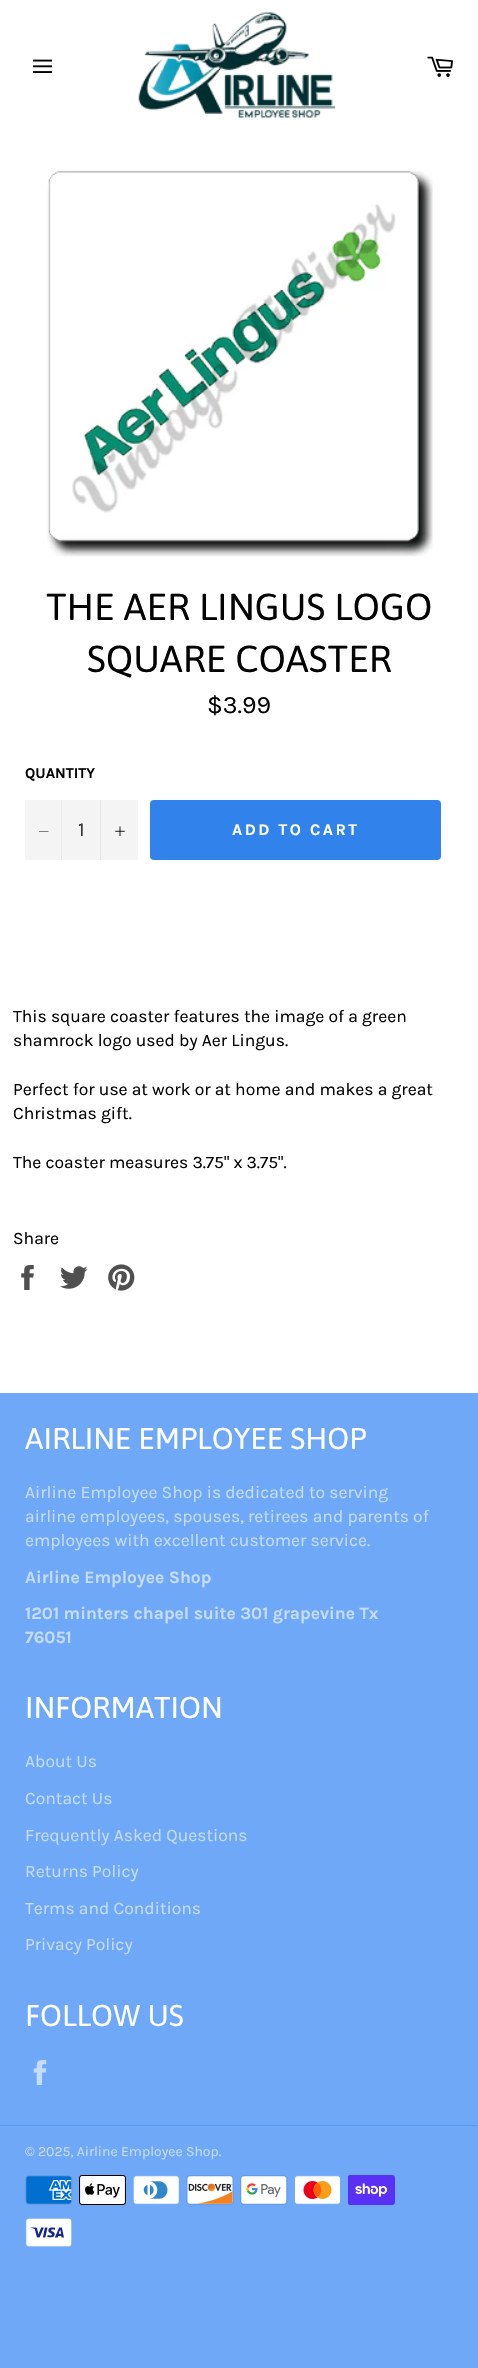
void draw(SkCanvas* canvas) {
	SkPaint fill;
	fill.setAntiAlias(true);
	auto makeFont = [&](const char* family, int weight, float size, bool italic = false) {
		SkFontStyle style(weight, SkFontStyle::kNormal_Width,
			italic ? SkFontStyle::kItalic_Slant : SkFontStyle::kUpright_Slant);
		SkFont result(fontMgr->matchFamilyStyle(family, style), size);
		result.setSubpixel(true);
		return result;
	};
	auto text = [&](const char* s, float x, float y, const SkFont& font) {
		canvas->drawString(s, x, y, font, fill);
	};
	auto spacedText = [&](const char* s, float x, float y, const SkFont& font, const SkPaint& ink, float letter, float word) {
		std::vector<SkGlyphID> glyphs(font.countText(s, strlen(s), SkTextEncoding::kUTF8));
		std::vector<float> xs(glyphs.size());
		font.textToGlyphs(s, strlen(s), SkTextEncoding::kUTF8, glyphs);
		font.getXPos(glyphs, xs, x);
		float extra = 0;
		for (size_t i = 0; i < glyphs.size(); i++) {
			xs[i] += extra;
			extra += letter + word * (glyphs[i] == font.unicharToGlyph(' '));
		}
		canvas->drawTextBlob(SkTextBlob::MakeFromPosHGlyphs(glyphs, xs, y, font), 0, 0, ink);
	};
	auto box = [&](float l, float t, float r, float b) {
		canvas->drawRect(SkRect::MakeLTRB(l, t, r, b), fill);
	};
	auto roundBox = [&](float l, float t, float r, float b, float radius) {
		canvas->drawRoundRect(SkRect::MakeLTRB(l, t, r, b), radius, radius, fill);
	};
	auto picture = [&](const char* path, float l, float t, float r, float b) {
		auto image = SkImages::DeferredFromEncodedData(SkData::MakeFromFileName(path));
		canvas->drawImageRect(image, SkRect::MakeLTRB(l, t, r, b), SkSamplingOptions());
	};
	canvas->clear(0xFF6EA8F7);
	fill.setColor(0xFFFFFFFF);
	box(0, 0, 478, 1393);
	picture("image0.png", 32, 59, 53, 73);
	picture("image1.png", 138, 12, 336, 118);
	picture("image2.png", 427, 56, 453, 77);
	picture("image3.png", 47, 170, 433, 557);
	fill.setColor(0xFFF4F4F4);
	box(25, 800, 138, 860);
	fill.setColor(0xFFE7E7E7);
	box(61, 800, 62, 860);
	fill.setColor(0xFF030303);
	canvas->drawPath(SkPathBuilder(SkPathFillType::kEvenOdd).moveTo(48.5f, 831).lineTo(48.5f, 831.5f).lineTo(39, 831.5f).lineTo(39, 831).close().detach(), fill);
	fill.setColor(0xFFE7E7E7);
	box(100, 800, 101, 860);
	picture("image4.png", 115, 826, 125, 836);
	fill.setColor(0xFF3282EC);
	roundBox(150, 800, 441, 860, 4);
	picture("image5.png", 21, 1265, 34, 1290);
	picture("image6.png", 60, 1266, 88, 1289);
	picture("image7.png", 108, 1264, 135, 1291);
	picture("image8.png", 33, 2060, 47, 2085);
	fill.setColor(0xFF569AF6);
	box(0, 2125, 478, 2126);
	picture("image9.png", 25, 2175, 73, 2205);
	picture("image10.png", 79, 2175, 126, 2205);
	picture("image11.png", 133, 2175, 180, 2205);
	picture("image12.png", 186, 2175, 234, 2205);
	picture("image13.png", 240, 2175, 288, 2205);
	picture("image14.png", 294, 2175, 341, 2205);
	picture("image15.png", 348, 2175, 395, 2205);
	picture("image16.png", 25, 2218, 72, 2247);
	auto font1 = makeFont("Asap", 400, 37.5f);
	fill.setColor(0xFF030303);
	text("THE AER LINGUS LOGO", 46, 620, font1);
	text("SQUARE COASTER", 87, 672, font1);
	auto font2 = makeFont("Karla", 400, 25);
	text("$3.99", 207, 713, font2);
	auto font3 = makeFont("Karla", 700, 15);
	text("QUANTITY", 25, 778, font3);
	auto font4 = makeFont("Karla", 400, 20);
	fill.setColor(0xFF333333);
	text("1", 78, 836, font4);
	auto font5 = makeFont("Karla", 700, 16.25f);
	fill.setColor(0xFFFFFFFF);
	spacedText("ADD TO CART", 232, 835, font5, fill, 2.5f, 0);
	auto font6 = makeFont("Karla", 400, 17.5f);
	fill.setColor(0xFF030303);
	text("This square coaster features the image of a green", 13, 1022, font6);
	text("shamrock logo used by Aer Lingus.", 13, 1046, font6);
	text("Perfect for use at work or at home and makes a great", 13, 1095, font6);
	text("Christmas gift.", 13, 1119, font6);
	text("The coaster measures 3.75\" x 3.75\".", 13, 1168, font6);
	text("Share", 13, 1244, font6);
	auto font7 = makeFont("Asap", 400, 30);
	fill.setColor(0xFFFFFFFF);
	text("AIRLINE EMPLOYEE SHOP", 25, 1449, font7);
	fill.setColor(0xFFC5DCFC);
	text("Airline Employee Shop is dedicated to serving", 25, 1498, font6);
	text("airline employees, spouses, retirees and parents of", 25, 1522, font6);
	text("employees with excellent customer service.", 25, 1546, font6);
	auto font8 = makeFont("Karla", 700, 17.5f);
	text("Airline Employee Shop", 25, 1583, font8);
	text("1201 minters chapel suite 301 grapevine Tx", 25, 1619, font8);
	text("76051", 25, 1643, font8);
	fill.setColor(0xFFFFFFFF);
	text("INFORMATION", 25, 1718, font7);
	fill.setColor(0xFFC5DCFC);
	text("About Us", 25, 1767, font6);
	text("Contact Us", 25, 1804, font6);
	text("Frequently Asked Questions", 25, 1841, font6);
	text("Returns Policy", 25, 1877, font6);
	text("Terms and Conditions", 25, 1914, font6);
	text("Privacy Policy", 25, 1950, font6);
	fill.setColor(0xFFFFFFFF);
	text("FOLLOW US", 25, 2026, font7);
	auto font9 = makeFont("Karla", 400, 14);
	fill.setColor(0xFFC5DCFC);
	text("© 2025, Airline Employee Shop.", 25, 2156, font9);
}
